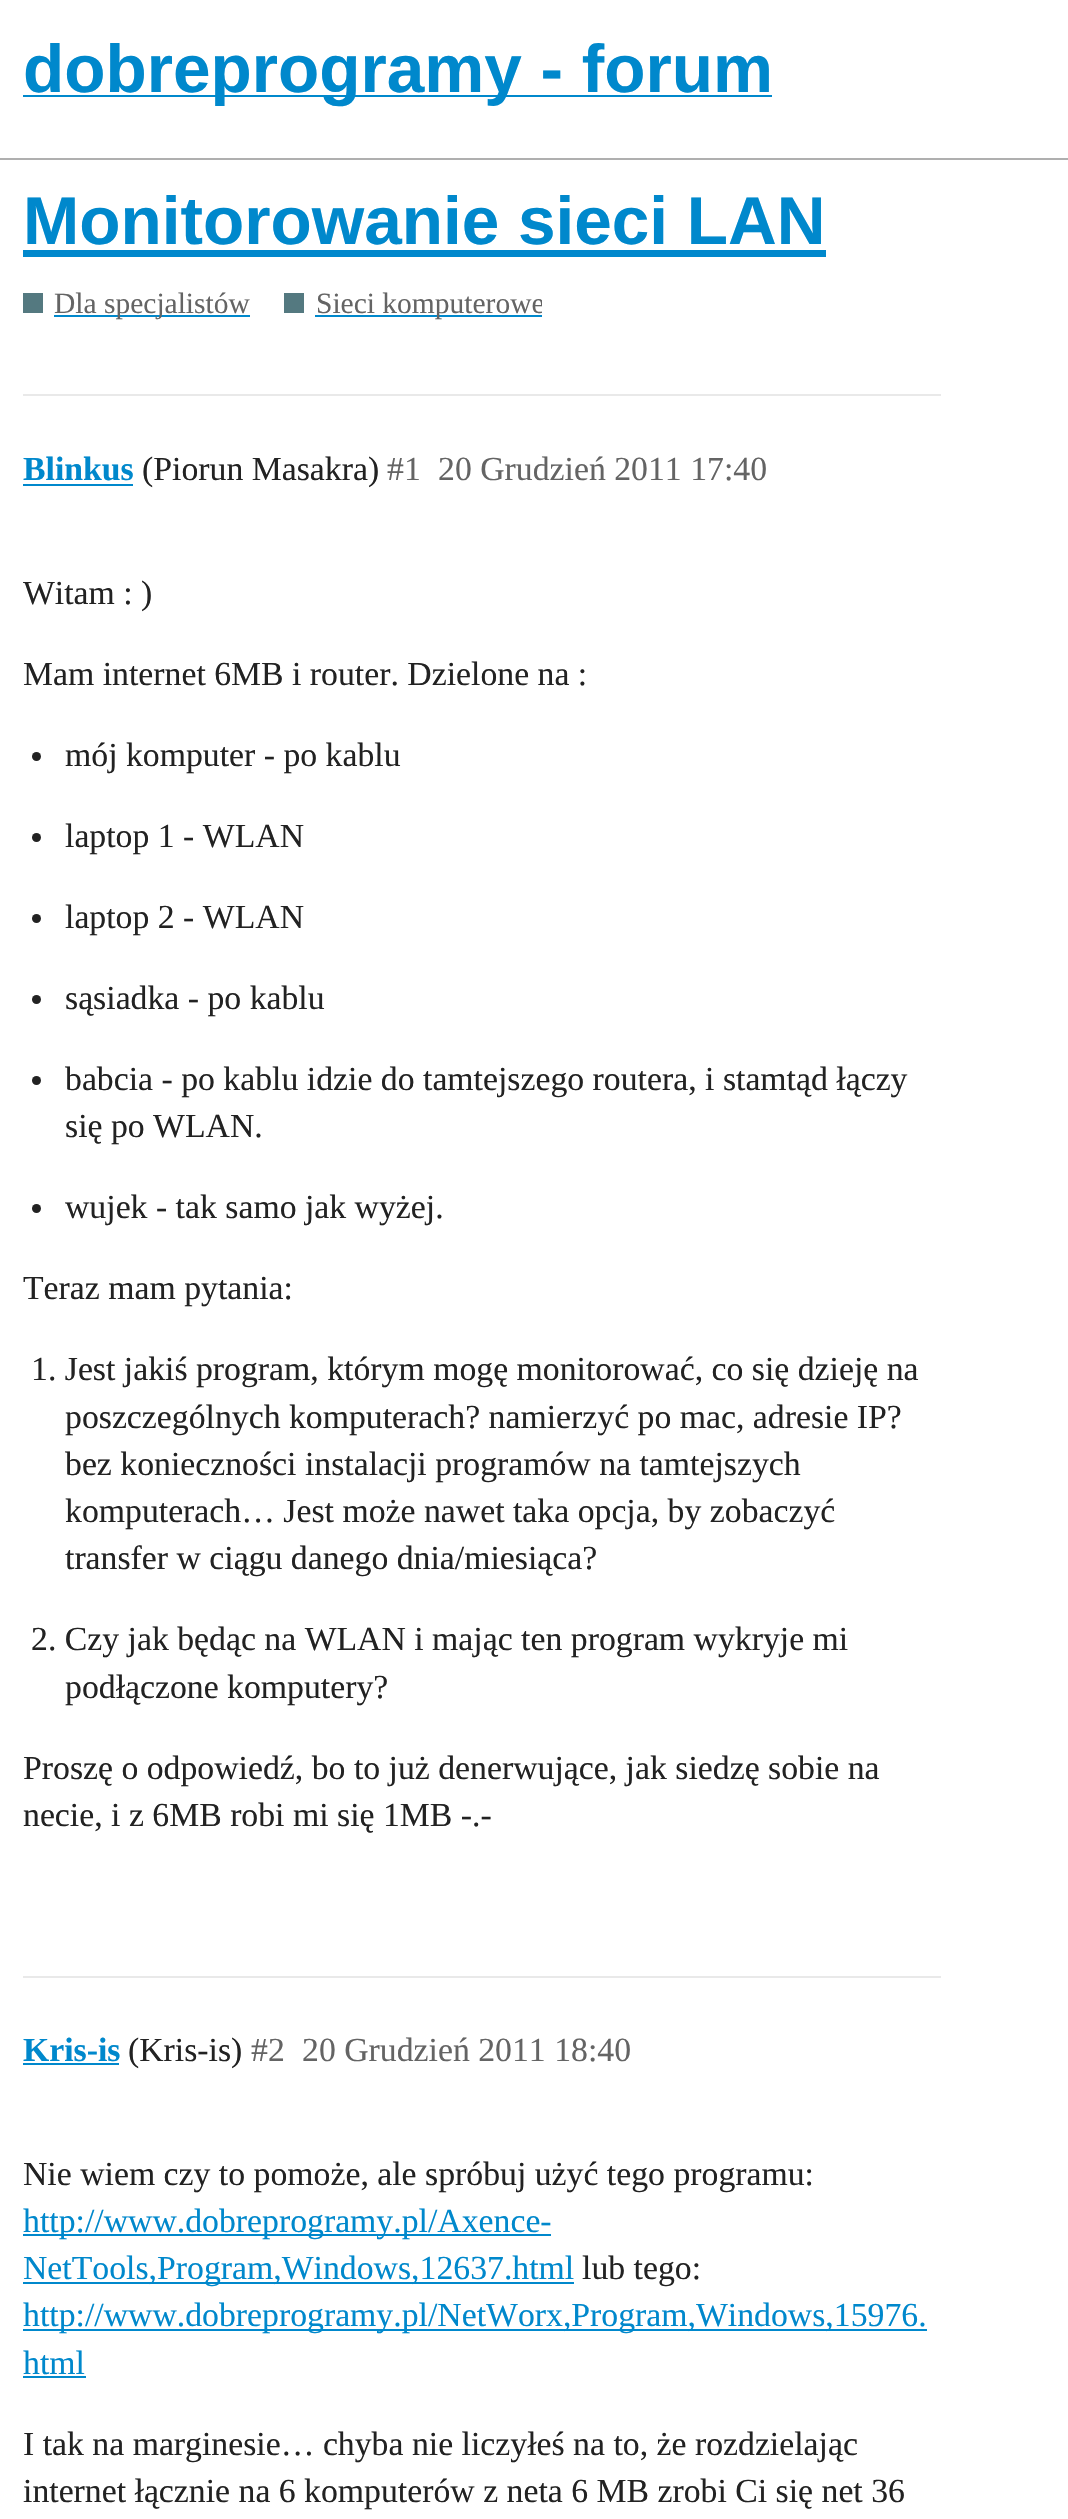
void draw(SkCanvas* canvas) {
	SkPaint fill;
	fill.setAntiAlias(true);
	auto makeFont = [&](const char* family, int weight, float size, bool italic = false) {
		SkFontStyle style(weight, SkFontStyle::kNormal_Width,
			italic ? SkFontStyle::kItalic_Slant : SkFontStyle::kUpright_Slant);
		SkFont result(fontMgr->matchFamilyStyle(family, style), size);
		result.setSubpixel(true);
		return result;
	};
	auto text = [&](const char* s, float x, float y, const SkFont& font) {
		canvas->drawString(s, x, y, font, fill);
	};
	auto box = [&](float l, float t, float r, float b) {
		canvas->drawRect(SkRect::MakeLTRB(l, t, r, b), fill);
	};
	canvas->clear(0xFFFFFFFF);
	fill.setColor(0xFFAFAFAF);
	box(0, 158, 1068, 160);
	fill.setColor(0xFF0088CC);
	box(23, 95, 772, 97);
	box(23, 250, 826, 257);
	fill.setColor(0xFF547980);
	box(23, 293, 43, 313);
	fill.setColor(0xFF0088CC);
	box(54, 315, 250, 317);
	fill.setColor(0xFF547980);
	box(284, 293, 304, 313);
	fill.setColor(0xFF0088CC);
	box(315, 315, 542, 317);
	fill.setColor(0xFFE9E9E9);
	box(23, 394, 941, 396);
	fill.setColor(0xFF0088CC);
	box(23, 484, 133, 486);
	fill.setColor(0xFF222222);
	canvas->drawCircle(36.5f, 756.5f, 4.5f, fill);
	canvas->drawCircle(36.5f, 837.5f, 4.5f, fill);
	canvas->drawCircle(36.5f, 918.5f, 4.5f, fill);
	canvas->drawCircle(36.5f, 999.5f, 4.5f, fill);
	canvas->drawCircle(36.5f, 1080.5f, 4.5f, fill);
	canvas->drawCircle(36.5f, 1208.5f, 4.5f, fill);
	fill.setColor(0xFFE9E9E9);
	box(23, 1976, 941, 1978);
	fill.setColor(0xFF0088CC);
	box(23, 2063, 119, 2065);
	box(23, 2234, 551, 2236);
	box(23, 2282, 574, 2284);
	box(23, 2329, 927, 2331);
	box(23, 2376, 86, 2378);
	auto font1 = makeFont("Liberation Sans", 700, 67.5f);
	text("dobreprogramy - forum", 23, 92, font1);
	text("Monitorowanie sieci LAN", 23, 244, font1);
	auto font2 = makeFont("Liberation Serif", 400, 29.5f);
	fill.setColor(0xFF646464);
	text("Dla specjalistów", 54, 313, font2);
	canvas->save();
	canvas->clipRect(SkRect::MakeLTRB(315, 284, 542, 324));
	text("Sieci komputerowe", 316, 313, font2);
	canvas->restore();
	auto font3 = makeFont("Liberation Serif", 700, 33.75f);
	fill.setColor(0xFF0088CC);
	text("Blinkus", 23, 480, font3);
	auto font4 = makeFont("Liberation Serif", 400, 33.75f);
	fill.setColor(0xFF222222);
	text("(Piorun Masakra)", 142, 480, font4);
	fill.setColor(0xFF646464);
	text("#1", 387, 480, font4);
	text("20 Grudzień 2011 17:40", 438, 480, font4);
	fill.setColor(0xFF222222);
	text("Witam : )", 23, 604, font4);
	text("Mam internet 6MB i router. Dzielone na :", 23, 685, font4);
	text("mój komputer - po kablu", 65, 766, font4);
	text("laptop 1 - WLAN", 65, 847, font4);
	text("laptop 2 - WLAN", 65, 928, font4);
	text("sąsiadka - po kablu", 65, 1009, font4);
	text("babcia - po kablu idzie do tamtejszego routera, i stamtąd łączy", 65, 1090, font4);
	text("się po WLAN.", 65, 1137, font4);
	text("wujek - tak samo jak wyżej.", 65, 1218, font4);
	text("Teraz mam pytania:", 23, 1299, font4);
	text("1. Jest jakiś program, którym mogę monitorować, co się dzieję na", 31, 1380, font4);
	text("poszczególnych komputerach? namierzyć po mac, adresie IP?", 65, 1428, font4);
	text("bez konieczności instalacji programów na tamtejszych", 65, 1475, font4);
	text("komputerach… Jest może nawet taka opcja, by zobaczyć", 65, 1522, font4);
	text("transfer w ciągu danego dnia/miesiąca?", 65, 1569, font4);
	text("2. Czy jak będąc na WLAN i mając ten program wykryje mi", 31, 1650, font4);
	text("podłączone komputery?", 65, 1698, font4);
	text("Proszę o odpowiedź, bo to już denerwujące, jak siedzę sobie na", 23, 1779, font4);
	text("necie, i z 6MB robi mi się 1MB -.-", 23, 1826, font4);
	fill.setColor(0xFF0088CC);
	text("Kris-is", 23, 2061, font3);
	fill.setColor(0xFF222222);
	text("(Kris-is)", 128, 2061, font4);
	fill.setColor(0xFF646464);
	text("#2", 251, 2061, font4);
	text("20 Grudzień 2011 18:40", 302, 2061, font4);
	fill.setColor(0xFF222222);
	text("Nie wiem czy to pomoże, ale spróbuj użyć tego programu:", 23, 2185, font4);
	fill.setColor(0xFF0088CC);
	text("http://www.dobreprogramy.pl/Axence-", 23, 2232, font4);
	text("NetTools,Program,Windows,12637.html", 23, 2279, font4);
	fill.setColor(0xFF222222);
	text("lub tego:", 582, 2279, font4);
	fill.setColor(0xFF0088CC);
	text("http://www.dobreprogramy.pl/NetWorx,Program,Windows,15976.", 23, 2326, font4);
	text("html", 23, 2374, font4);
	fill.setColor(0xFF222222);
	text("I tak na marginesie… chyba nie liczyłeś na to, że rozdzielając", 23, 2455, font4);
	text("internet łącznie na 6 komputerów z neta 6 MB zrobi Ci się net 36", 23, 2502, font4);
}
